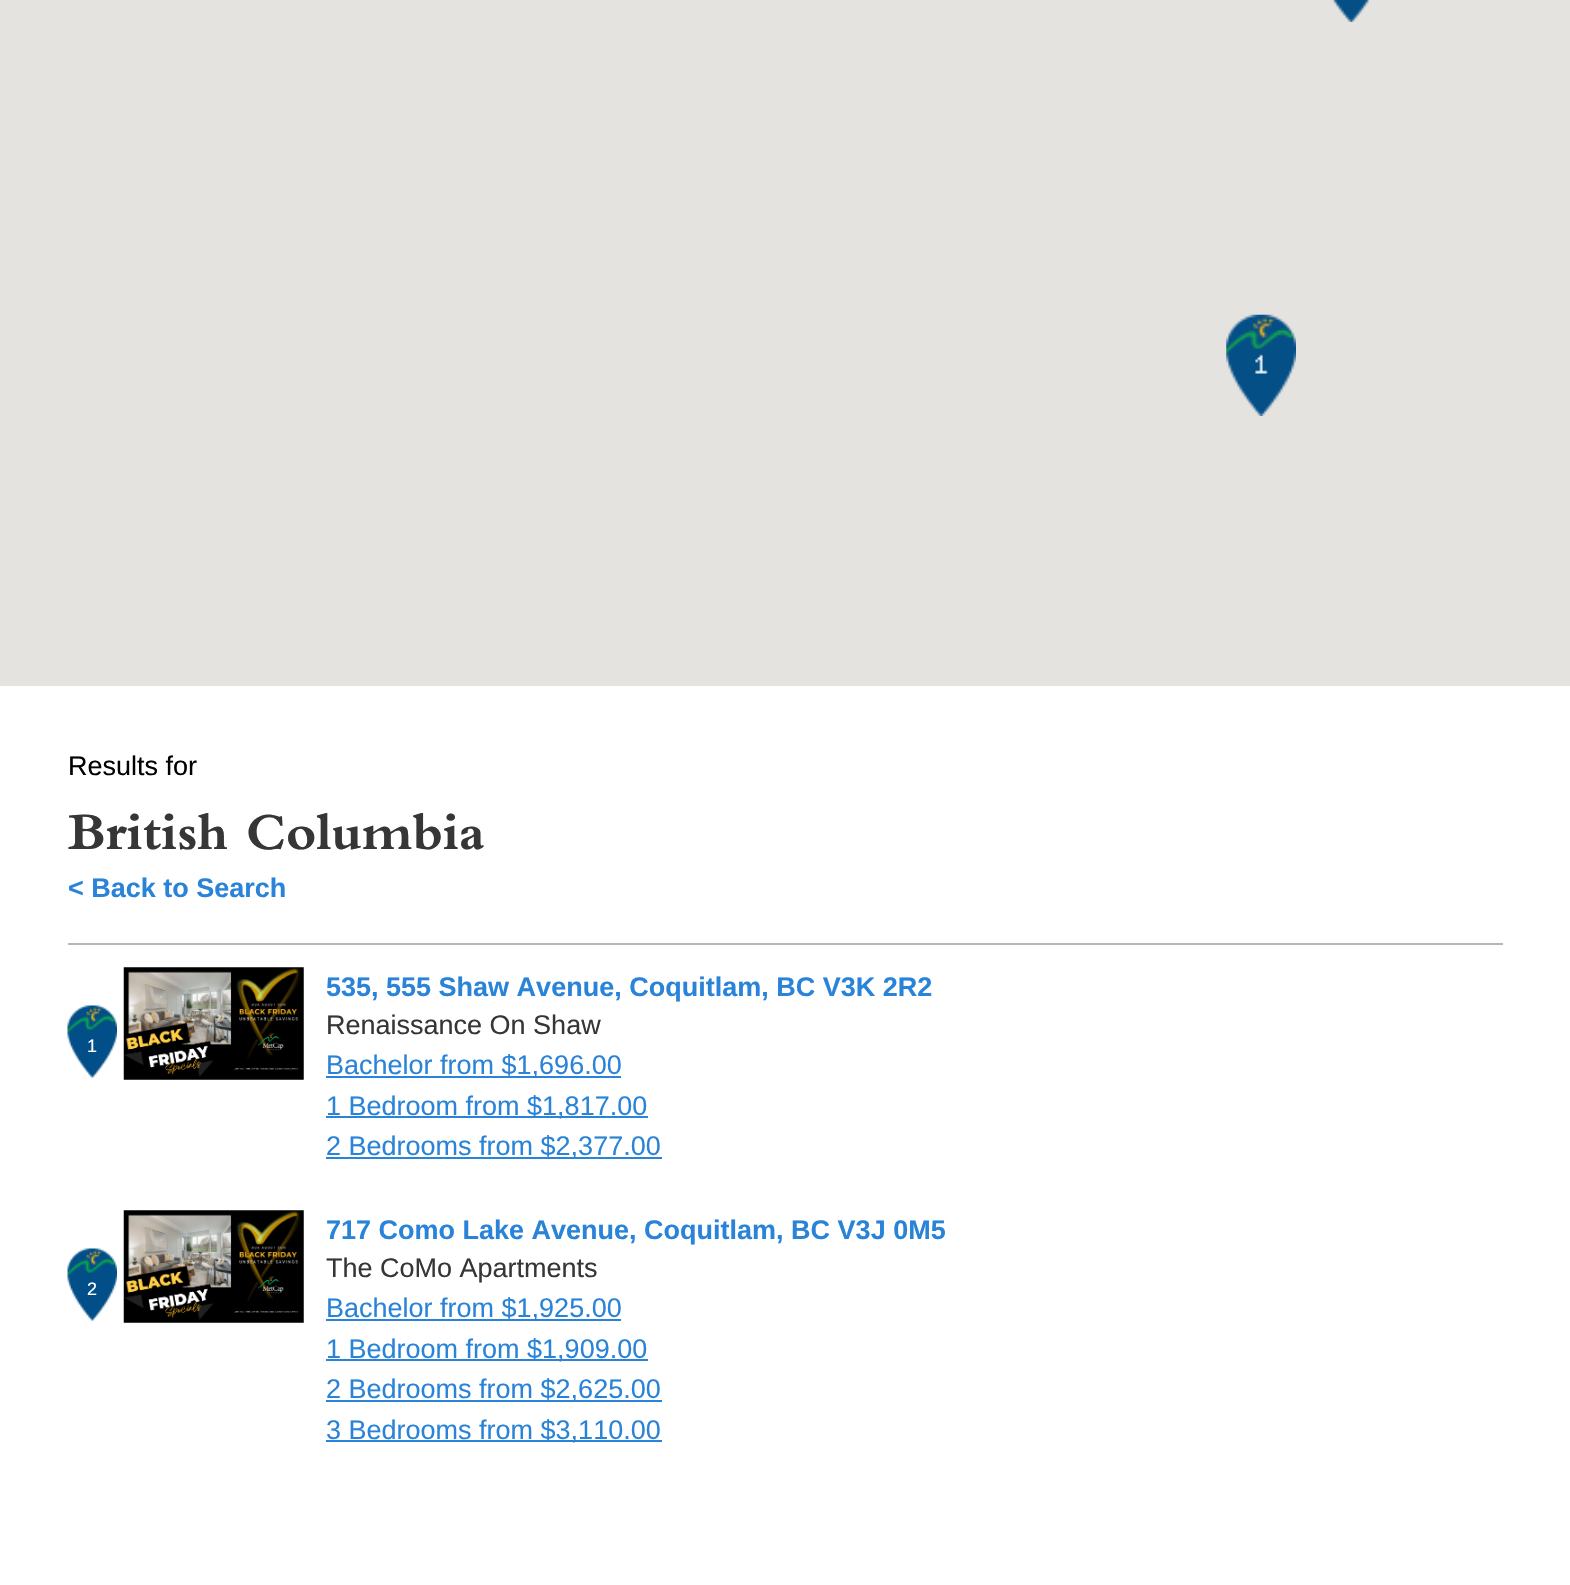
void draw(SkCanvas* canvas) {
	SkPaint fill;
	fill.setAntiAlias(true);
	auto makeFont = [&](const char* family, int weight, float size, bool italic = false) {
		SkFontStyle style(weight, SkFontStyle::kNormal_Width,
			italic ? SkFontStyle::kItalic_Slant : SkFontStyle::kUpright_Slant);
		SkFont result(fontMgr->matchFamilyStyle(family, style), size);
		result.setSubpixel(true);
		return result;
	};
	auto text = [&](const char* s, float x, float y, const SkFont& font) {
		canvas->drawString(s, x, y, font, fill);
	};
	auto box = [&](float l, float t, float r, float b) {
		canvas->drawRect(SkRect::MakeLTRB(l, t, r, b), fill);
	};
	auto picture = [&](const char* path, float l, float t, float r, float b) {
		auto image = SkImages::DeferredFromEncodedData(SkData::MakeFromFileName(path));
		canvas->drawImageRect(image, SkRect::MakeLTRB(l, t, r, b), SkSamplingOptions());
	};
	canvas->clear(0xFFE5E3DF);
	picture("image0.png", 1332, 0, 1370, 22);
	picture("image1.png", 1226, 314, 1296, 416);
	fill.setColor(0xFFFFFFFF);
	box(0, 686, 1570, 1585);
	fill.setColor(0xFFB7B7B7);
	box(68, 943, 1503, 945);
	picture("image2.png", 67, 1005, 117, 1078);
	picture("image3.png", 123, 967, 304, 1080);
	fill.setColor(0xFF2983D8);
	box(326, 1076, 621, 1078);
	box(326, 1116, 648, 1118);
	box(326, 1157, 662, 1159);
	picture("image2.png", 67, 1248, 117, 1321);
	picture("image3.png", 123, 1210, 304, 1323);
	box(326, 1319, 621, 1321);
	box(326, 1359, 648, 1361);
	box(326, 1400, 662, 1402);
	box(326, 1440, 662, 1442);
	auto font1 = makeFont("Liberation Sans", 400, 27);
	fill.setColor(0xFF000000);
	text("Results for", 68, 775, font1);
	auto font2 = makeFont("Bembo", 700, 54);
	fill.setColor(0xFF363636);
	text("British Columbia", 68, 849, font2);
	auto font3 = makeFont("Liberation Sans", 700, 27);
	fill.setColor(0xFF2983D8);
	text("< Back to Search", 68, 897, font3);
	auto font4 = makeFont("Liberation Sans", 400, 18);
	fill.setColor(0xFFFFFFFF);
	text("1", 87, 1052, font4);
	fill.setColor(0xFF2983D8);
	text("535, 555 Shaw Avenue, Coquitlam, BC V3K 2R2", 326, 996, font3);
	fill.setColor(0xFF363636);
	text("Renaissance On Shaw", 326, 1034, font1);
	fill.setColor(0xFF2983D8);
	text("Bachelor from $1,696.00", 326, 1074, font1);
	text("1 Bedroom from $1,817.00", 326, 1115, font1);
	text("2 Bedrooms from $2,377.00", 326, 1155, font1);
	fill.setColor(0xFFFFFFFF);
	text("2", 87, 1295, font4);
	fill.setColor(0xFF2983D8);
	text("717 Como Lake Avenue, Coquitlam, BC V3J 0M5", 326, 1239, font3);
	fill.setColor(0xFF363636);
	text("The CoMo Apartments", 326, 1277, font1);
	fill.setColor(0xFF2983D8);
	text("Bachelor from $1,925.00", 326, 1317, font1);
	text("1 Bedroom from $1,909.00", 326, 1358, font1);
	text("2 Bedrooms from $2,625.00", 326, 1398, font1);
	text("3 Bedrooms from $3,110.00", 326, 1439, font1);
}
